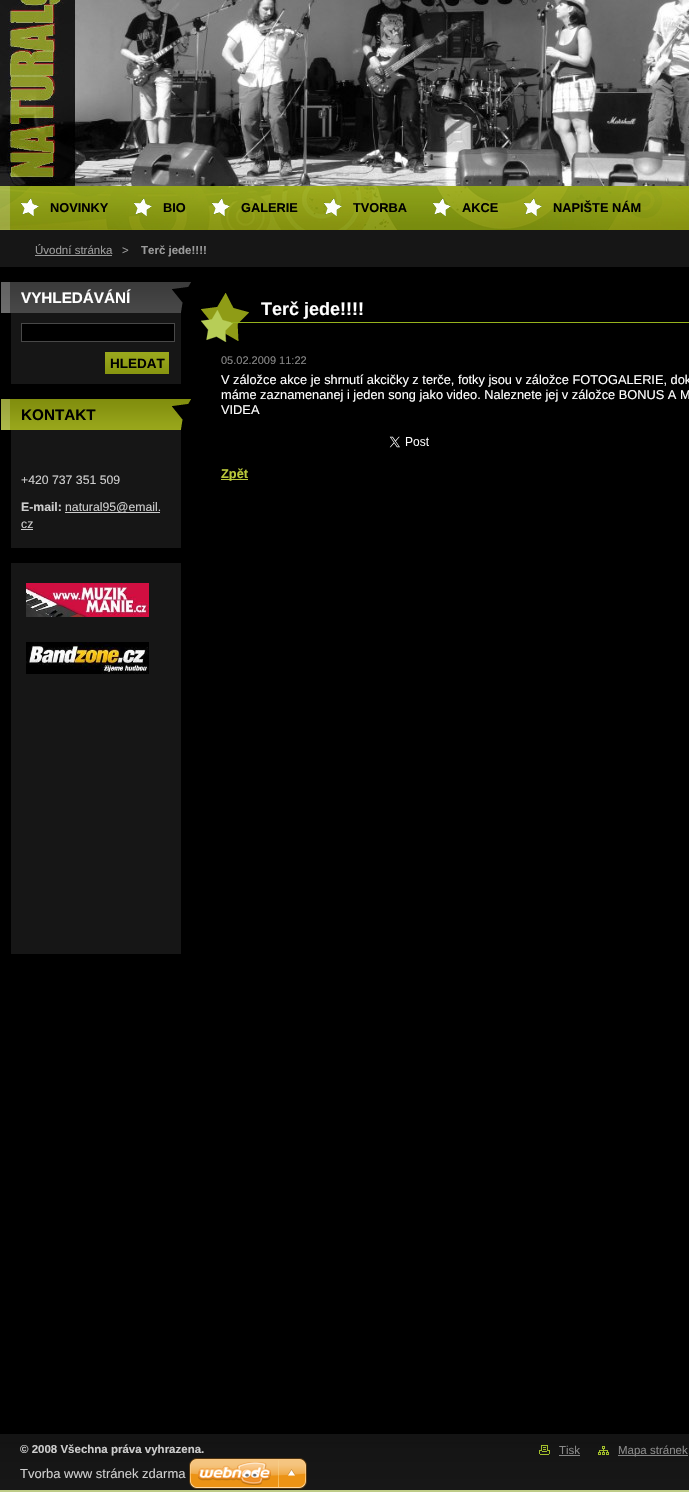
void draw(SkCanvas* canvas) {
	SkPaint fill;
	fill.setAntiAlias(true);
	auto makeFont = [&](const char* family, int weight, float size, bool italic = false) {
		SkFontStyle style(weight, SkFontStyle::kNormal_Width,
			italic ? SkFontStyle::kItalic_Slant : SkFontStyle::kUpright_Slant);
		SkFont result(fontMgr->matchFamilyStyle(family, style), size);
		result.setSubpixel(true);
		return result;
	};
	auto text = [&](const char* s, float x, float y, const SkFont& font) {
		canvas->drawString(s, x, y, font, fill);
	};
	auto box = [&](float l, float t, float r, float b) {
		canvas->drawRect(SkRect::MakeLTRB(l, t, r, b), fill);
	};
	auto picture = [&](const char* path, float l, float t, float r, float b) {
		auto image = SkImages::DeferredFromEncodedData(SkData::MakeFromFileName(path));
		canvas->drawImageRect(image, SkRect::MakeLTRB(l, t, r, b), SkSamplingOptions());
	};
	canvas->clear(0xFFBECB87);
	fill.setColor(0xFF000000);
	box(0, 267, 689, 1434);
	picture("image0.png", 0, 0, 689, 186);
	picture("image1.png", 0, 186, 689, 230);
	picture("image2.png", 21, 198, 39, 216);
	picture("image3.png", 134, 198, 152, 216);
	picture("image4.png", 212, 198, 230, 216);
	picture("image5.png", 324, 198, 342, 216);
	picture("image6.png", 433, 198, 451, 216);
	picture("image7.png", 524, 198, 542, 216);
	fill.setColor(0xFF161616);
	box(0, 230, 689, 267);
	fill.setColor(0xFF9B9B9B);
	box(35, 255, 112, 256);
	picture("image8.png", 1, 282, 191, 313);
	fill.setColor(0xFF161616);
	box(11, 313, 181, 384);
	fill.setColor(0xFF000000);
	canvas->drawRect(SkRect::MakeLTRB(21.5f, 323.5f, 174.5f, 341.5f), fill);
	fill.setStyle(SkPaint::kStroke_Style);
	fill.setStrokeWidth(1);
	fill.setColor(0xFF484848);
	canvas->drawRect(SkRect::MakeLTRB(21.5f, 323.5f, 174.5f, 341.5f), fill);
	picture("image9.png", 105, 352, 169, 374);
	picture("image10.png", 1, 399, 191, 430);
	fill.setStyle(SkPaint::kFill_Style);
	fill.setColor(0xFF161616);
	box(11, 430, 181, 548);
	fill.setColor(0xFFCDCDCD);
	box(65, 512, 160, 513);
	box(21, 529, 33, 530);
	fill.setColor(0xFF161616);
	box(11, 563, 181, 954);
	picture("image11.png", 26, 583, 149, 617);
	picture("image12.png", 26, 642, 149, 674);
	picture("image13.png", 201, 293, 689, 342);
	picture("image14.png", 389, 436, 429, 448);
	fill.setColor(0xFFB9C83A);
	box(221, 479, 248, 480);
	picture("image15.png", 0, 1434, 689, 1490);
	picture("image16.png", 539, 1445, 550, 1455);
	fill.setColor(0xFF888888);
	box(559, 1455, 580, 1456);
	picture("image17.png", 598, 1446, 609, 1455);
	box(618, 1455, 688, 1456);
	picture("image18.png", 189, 1458, 307, 1489);
	auto font1 = makeFont("Liberation Sans", 700, 12.8f);
	fill.setColor(0xFF000000);
	text("NOVINKY", 50, 212, font1);
	text("BIO", 163, 212, font1);
	text("GALERIE", 241, 212, font1);
	text("TVORBA", 353, 212, font1);
	text("AKCE", 462, 212, font1);
	text("NAPIŠTE NÁM", 553, 212, font1);
	auto font2 = makeFont("Liberation Sans", 400, 11.5f);
	fill.setColor(0xFF9B9B9B);
	text("Úvodní stránka", 35, 254, font2);
	text(">", 122, 254, font2);
	auto font3 = makeFont("Liberation Sans", 700, 11.5f);
	text("Terč jede!!!!", 141, 254, font3);
	auto font4 = makeFont("Liberation Sans", 700, 15.25f);
	fill.setColor(0xFFFFFFFF);
	text("VYHLEDÁVÁNÍ", 21, 303, font4);
	auto font5 = makeFont("Liberation Sans", 700, 13.5f);
	fill.setColor(0xFF000000);
	text("HLEDAT", 110, 368, font5);
	text("KONTAKT", 21, 420, font4);
	auto font6 = makeFont("Liberation Sans", 400, 12.25f);
	fill.setColor(0xFFCDCDCD);
	text("+420 737 351 509", 21, 484, font6);
	auto font7 = makeFont("Liberation Sans", 700, 12.25f);
	text("E-mail:", 21, 511, font7);
	text("natural95@email.", 65, 511, font6);
	text("cz", 21, 528, font6);
	auto font8 = makeFont("Liberation Sans", 700, 18);
	fill.setColor(0xFFFFFFFF);
	text("Terč jede!!!!", 261, 315, font8);
	auto font9 = makeFont("Liberation Sans", 400, 11);
	fill.setColor(0xFF888888);
	text("05.02.2009 11:22", 221, 364, font9);
	auto font10 = makeFont("Liberation Sans", 400, 12.8f);
	fill.setColor(0xFFFFFFFF);
	text("V záložce akce je shrnutí akcičky z terče, fotky jsou v záložce FOTOGALERIE, dok", 221, 384, font10);
	text("máme zaznamenanej i jeden song jako video. Naleznete jej v záložce BONUS A M", 221, 399, font10);
	text("VIDEA", 221, 414, font10);
	fill.setColor(0xFFB9C83A);
	text("Zpět", 221, 478, font1);
	fill.setColor(0xFFCDCDCD);
	text("© 2008 Všechna práva vyhrazena.", 20, 1453, font3);
	fill.setColor(0xFF888888);
	text("Tisk", 559, 1454, font2);
	text("Mapa stránek", 618, 1454, font2);
	auto font11 = makeFont("Liberation Sans", 400, 13);
	fill.setColor(0xFFCDCDCD);
	text("Tvorba www stránek zdarma", 20, 1478, font11);
}
